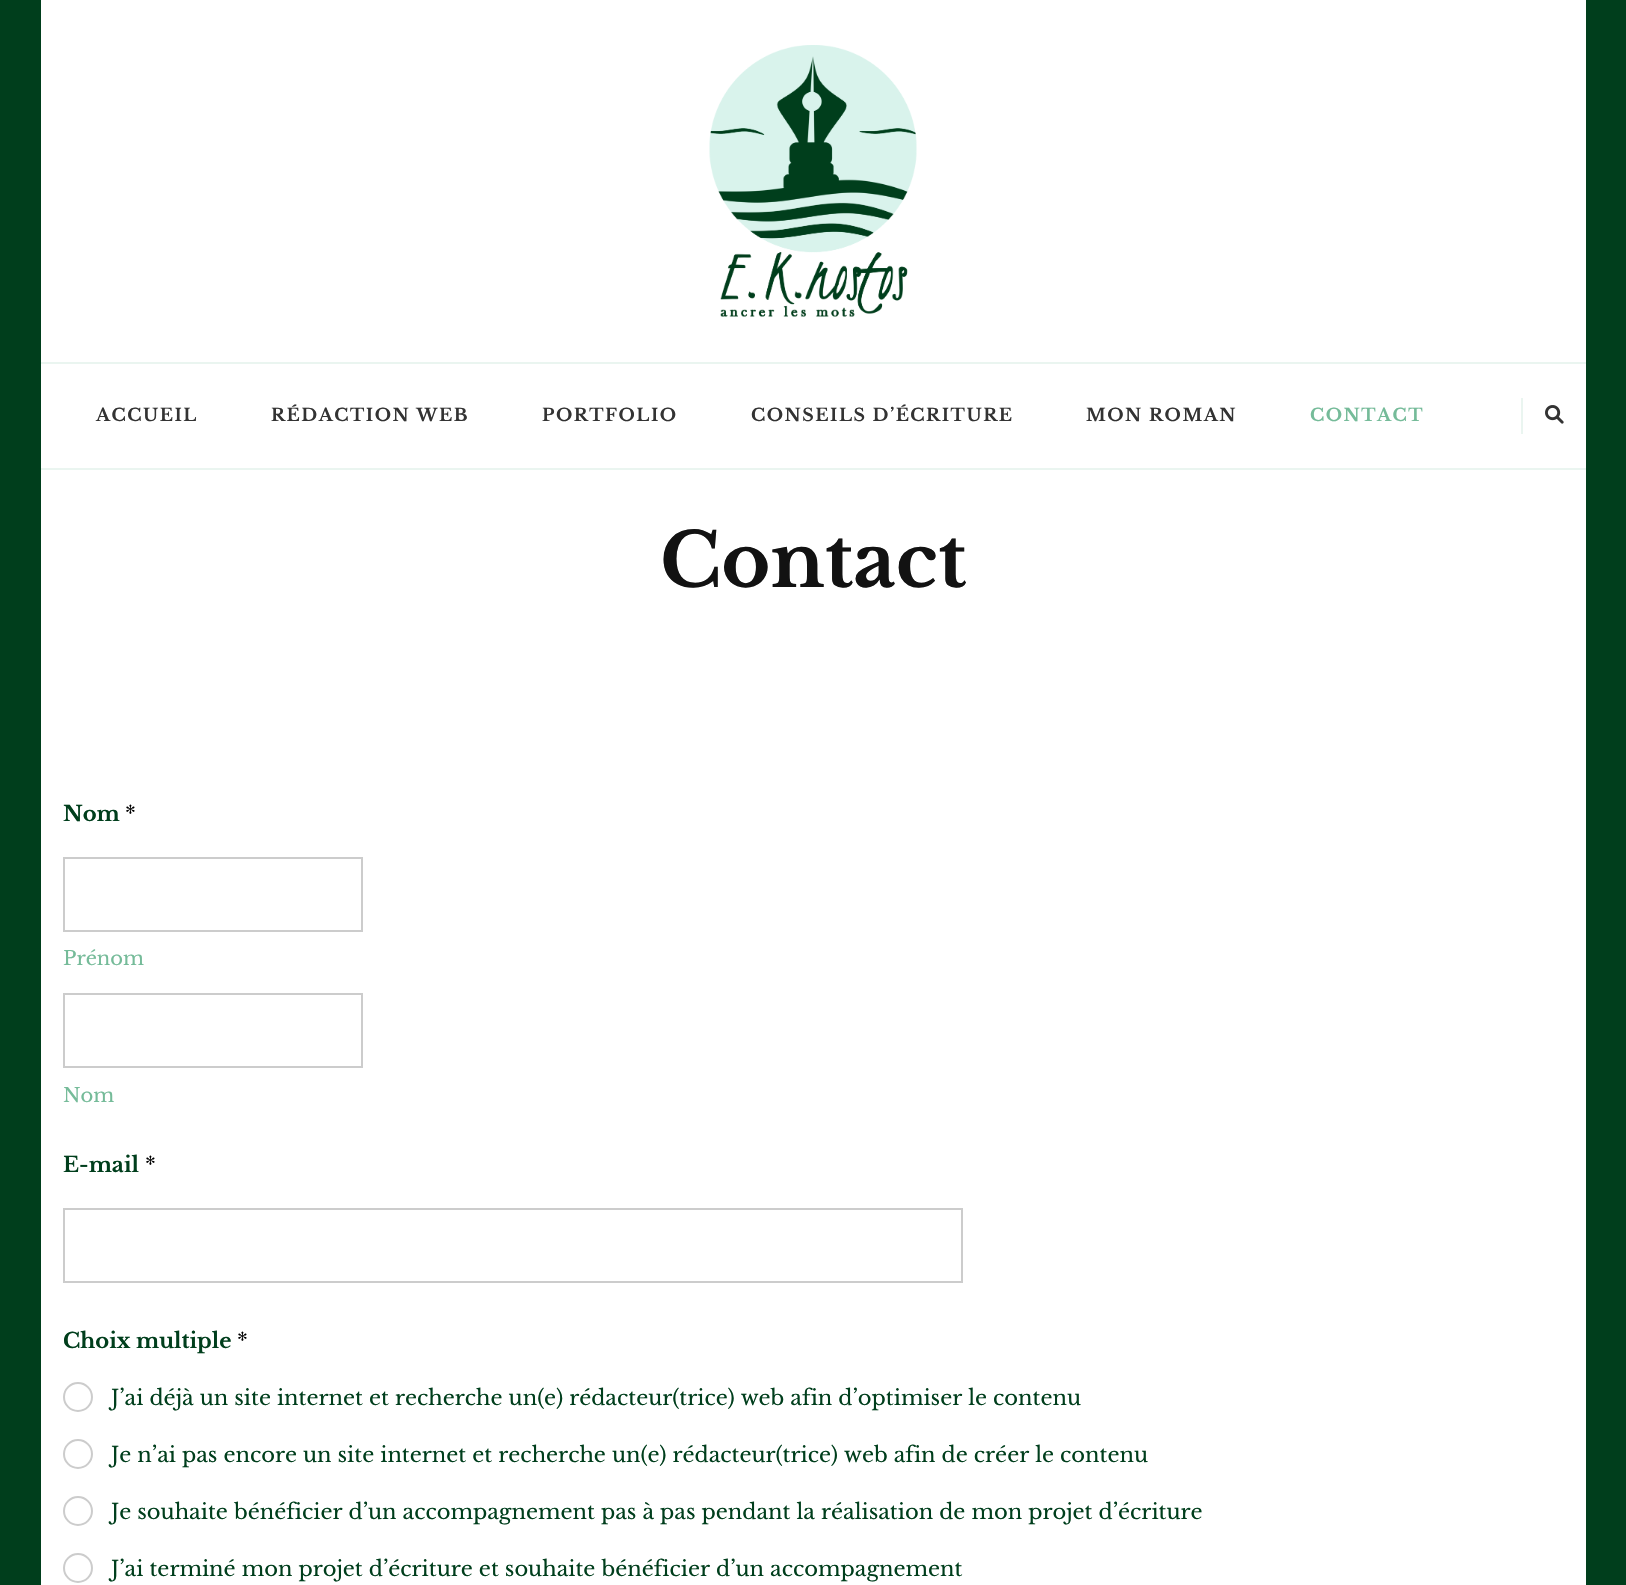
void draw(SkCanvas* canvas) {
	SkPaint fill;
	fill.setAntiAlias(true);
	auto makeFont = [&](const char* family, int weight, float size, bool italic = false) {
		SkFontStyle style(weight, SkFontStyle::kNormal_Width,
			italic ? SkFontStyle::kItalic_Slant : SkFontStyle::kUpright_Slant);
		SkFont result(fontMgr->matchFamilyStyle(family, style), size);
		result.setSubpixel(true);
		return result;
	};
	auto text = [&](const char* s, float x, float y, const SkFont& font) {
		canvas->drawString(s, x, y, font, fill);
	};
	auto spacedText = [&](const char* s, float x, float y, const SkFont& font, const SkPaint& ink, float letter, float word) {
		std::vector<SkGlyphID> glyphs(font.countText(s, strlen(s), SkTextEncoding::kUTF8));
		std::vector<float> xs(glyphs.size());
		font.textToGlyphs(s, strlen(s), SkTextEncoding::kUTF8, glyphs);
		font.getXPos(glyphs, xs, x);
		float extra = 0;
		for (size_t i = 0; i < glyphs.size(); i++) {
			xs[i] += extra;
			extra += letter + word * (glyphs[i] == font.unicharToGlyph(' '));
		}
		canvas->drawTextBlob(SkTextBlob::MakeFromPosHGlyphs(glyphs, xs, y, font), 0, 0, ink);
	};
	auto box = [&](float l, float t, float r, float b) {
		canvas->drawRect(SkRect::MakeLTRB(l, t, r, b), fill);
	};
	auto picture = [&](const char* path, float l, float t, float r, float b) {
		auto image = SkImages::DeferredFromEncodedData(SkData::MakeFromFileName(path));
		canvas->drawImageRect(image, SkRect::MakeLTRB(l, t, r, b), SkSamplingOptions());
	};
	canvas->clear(0xFF003E1C);
	fill.setColor(0xFFFFFFFF);
	box(41, 0, 1586, 1585);
	picture("image0.png", 709, 45, 917, 317);
	fill.setColor(0xFFEAF5F0);
	box(41, 362, 1586, 364);
	box(41, 468, 1586, 470);
	box(1521, 398, 1523, 434);
	picture("image1.png", 1545, 405, 1564, 424);
	fill.setStyle(SkPaint::kStroke_Style);
	fill.setStrokeWidth(2);
	fill.setColor(0xFFCCCCCC);
	canvas->drawRect(SkRect::MakeLTRB(64, 858, 362, 931), fill);
	canvas->drawRect(SkRect::MakeLTRB(64, 994, 362, 1067), fill);
	canvas->drawRect(SkRect::MakeLTRB(64, 1209, 962, 1282), fill);
	canvas->drawCircle(78, 1397, 14, fill);
	canvas->drawCircle(78, 1454, 14, fill);
	canvas->drawCircle(78, 1511, 14, fill);
	canvas->drawCircle(78, 1568, 14, fill);
	auto font1 = makeFont("Libre Baskerville", 700, 17.3f);
	fill.setStyle(SkPaint::kFill_Style);
	fill.setColor(0xFF333333);
	spacedText("ACCUEIL", 96, 421, font1, fill, 1.5f, 0);
	spacedText("RÉDACTION WEB", 271, 421, font1, fill, 1.5f, 0);
	spacedText("PORTFOLIO", 542, 421, font1, fill, 1.5f, 0);
	spacedText("CONSEILS D’ÉCRITURE", 751, 421, font1, fill, 1.5f, 0);
	spacedText("MON ROMAN", 1086, 421, font1, fill, 1.5f, 0);
	fill.setColor(0xFF75BB99);
	spacedText("CONTACT", 1310, 421, font1, fill, 1.5f, 0);
	auto font2 = makeFont("Libre Baskerville", 700, 74.5f);
	fill.setColor(0xFF121212);
	text("Contact", 660, 587, font2);
	auto font3 = makeFont("Libre Baskerville", 700, 21);
	fill.setColor(0xFF003E1C);
	text("Nom", 63, 821, font3);
	auto font4 = makeFont("Libre Baskerville", 400, 21);
	fill.setColor(0xFF000000);
	text("*", 125, 821, font4);
	auto font5 = makeFont("Libre Baskerville", 400, 19.5f);
	fill.setColor(0xFF75BB99);
	text("Prénom", 63, 965, font5);
	text("Nom", 63, 1102, font5);
	fill.setColor(0xFF003E1C);
	text("E-mail", 63, 1172, font3);
	fill.setColor(0xFF000000);
	text("*", 145, 1172, font4);
	fill.setColor(0xFF003E1C);
	text("Choix multiple", 63, 1348, font3);
	fill.setColor(0xFF000000);
	text("*", 237, 1348, font4);
	fill.setColor(0xFF003E1C);
	text("J’ai déjà un site internet et recherche un(e) rédacteur(trice) web afin d’optimiser le contenu", 111, 1405, font4);
	text("Je n’ai pas encore un site internet et recherche un(e) rédacteur(trice) web afin de créer le contenu", 111, 1462, font4);
	text("Je souhaite bénéficier d’un accompagnement pas à pas pendant la réalisation de mon projet d’écriture", 111, 1519, font4);
	text("J’ai terminé mon projet d’écriture et souhaite bénéficier d’un accompagnement", 111, 1576, font4);
}
